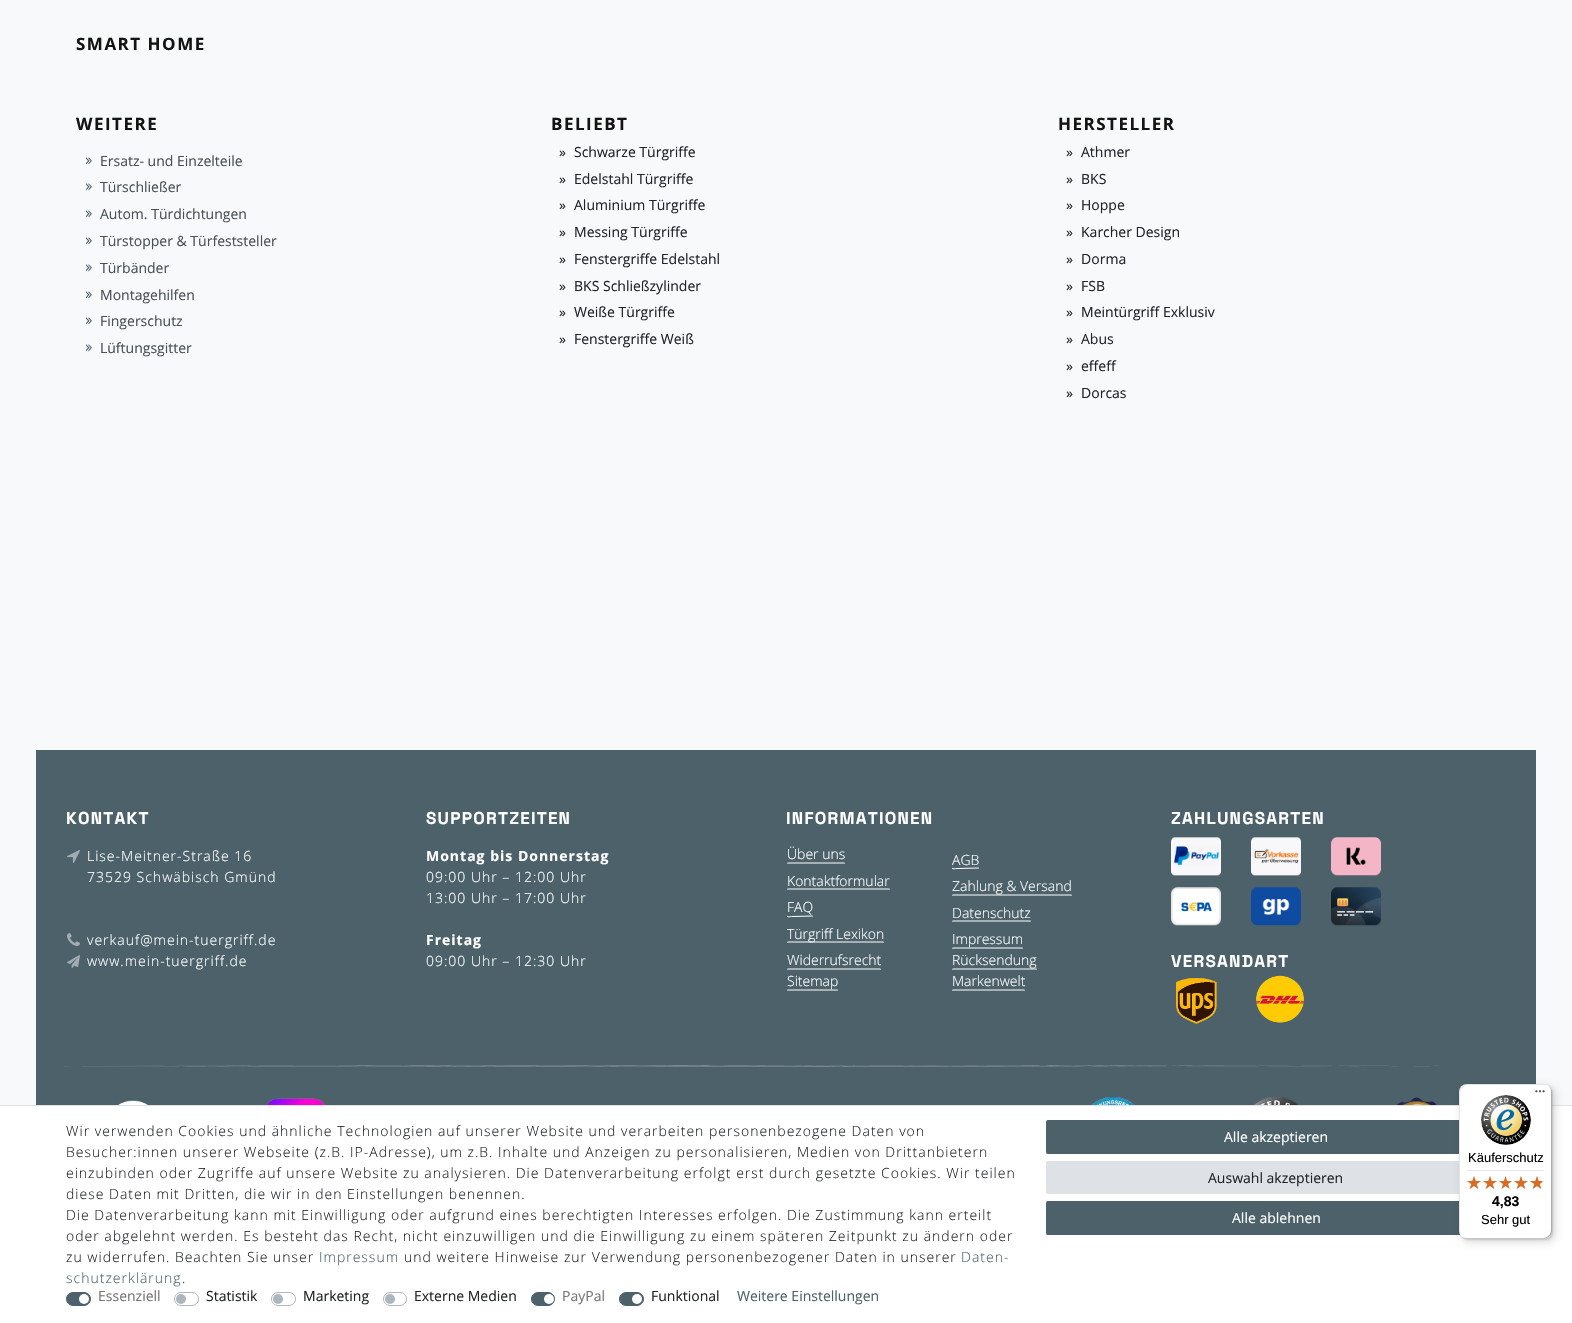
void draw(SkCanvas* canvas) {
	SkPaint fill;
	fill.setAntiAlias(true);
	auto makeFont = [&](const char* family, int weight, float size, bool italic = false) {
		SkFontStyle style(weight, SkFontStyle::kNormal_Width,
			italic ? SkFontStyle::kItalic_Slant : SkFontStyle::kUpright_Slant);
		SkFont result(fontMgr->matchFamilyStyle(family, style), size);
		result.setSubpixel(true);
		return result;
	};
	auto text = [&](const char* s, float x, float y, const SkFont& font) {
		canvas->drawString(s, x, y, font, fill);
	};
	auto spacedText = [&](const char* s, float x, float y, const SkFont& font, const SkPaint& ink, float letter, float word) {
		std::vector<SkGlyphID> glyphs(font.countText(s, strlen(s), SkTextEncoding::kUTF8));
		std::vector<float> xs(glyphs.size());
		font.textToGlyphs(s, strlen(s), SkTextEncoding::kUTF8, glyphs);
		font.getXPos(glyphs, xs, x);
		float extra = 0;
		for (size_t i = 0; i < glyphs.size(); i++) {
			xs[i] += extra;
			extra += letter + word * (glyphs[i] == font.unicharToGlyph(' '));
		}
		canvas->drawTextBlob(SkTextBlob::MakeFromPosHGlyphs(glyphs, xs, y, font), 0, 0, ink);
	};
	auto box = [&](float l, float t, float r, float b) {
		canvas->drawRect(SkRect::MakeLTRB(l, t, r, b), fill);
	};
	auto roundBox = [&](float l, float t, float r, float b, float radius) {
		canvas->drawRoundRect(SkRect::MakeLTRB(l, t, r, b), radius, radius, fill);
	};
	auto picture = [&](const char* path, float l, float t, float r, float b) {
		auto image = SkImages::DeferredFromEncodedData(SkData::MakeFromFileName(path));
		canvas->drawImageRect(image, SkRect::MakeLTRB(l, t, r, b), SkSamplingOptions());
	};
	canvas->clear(0xFFF8F9FA);
	picture("image0.png", 86, 157, 92, 164);
	picture("image1.png", 86, 183, 92, 191);
	picture("image1.png", 86, 210, 92, 218);
	picture("image1.png", 86, 237, 92, 245);
	picture("image1.png", 86, 264, 92, 272);
	picture("image0.png", 86, 291, 92, 298);
	picture("image1.png", 86, 317, 92, 325);
	picture("image1.png", 86, 344, 92, 352);
	fill.setColor(0xFF4C616A);
	box(36, 750, 1536, 1105);
	picture("image2.png", 64, 1065, 1439, 1067);
	picture("image3.png", 67, 850, 80, 863);
	picture("image4.png", 67, 933, 80, 946);
	picture("image5.png", 67, 955, 80, 968);
	fill.setStyle(SkPaint::kStroke_Style);
	fill.setStrokeWidth(1);
	fill.setColor(0xFFFFFFFF);
	canvas->drawPath(SkPathBuilder().moveTo(845, 863).lineTo(787, 863).detach(), fill);
	fill.setColor(0xFF4C616A);
	canvas->drawPath(SkPathBuilder().moveTo(787, 863).lineTo(786.5f, 854).cubicTo(786.5f, 842, 784, 844.5f, 797, 844.5f).lineTo(835, 844.5f).cubicTo(849, 844.5f, 845.5f, 842, 845.5f, 857).lineTo(845, 863).detach(), fill);
	fill.setColor(0xFFFFFFFF);
	canvas->drawPath(SkPathBuilder().moveTo(890, 889).lineTo(787, 889).detach(), fill);
	fill.setColor(0xFF4C616A);
	canvas->drawPath(SkPathBuilder().moveTo(787, 889).lineTo(786.5f, 880.5f).cubicTo(786.5f, 866.5f, 785, 871.5f, 804.5f, 871.5f).lineTo(872.5f, 871.5f).cubicTo(892, 871.5f, 890.5f, 866.5f, 890.5f, 880.5f).lineTo(890, 889).detach(), fill);
	fill.setColor(0xFFFFFFFF);
	canvas->drawPath(SkPathBuilder().moveTo(813, 916).lineTo(791.5f, 916.5f).cubicTo(790, 916.5f, 788, 917.5f, 787, 916).detach(), fill);
	fill.setColor(0xFF4C616A);
	canvas->drawPath(SkPathBuilder().moveTo(787, 916).cubicTo(786, 915.5f, 786.5f, 908.5f, 786.5f, 907).lineTo(786.5f, 901.5f).cubicTo(786.5f, 896.5f, 786, 897.5f, 791.5f, 897.5f).lineTo(808.5f, 897.5f).cubicTo(814, 897.5f, 813.5f, 896.5f, 813.5f, 901.5f).lineTo(813.5f, 907).cubicTo(813.5f, 908.5f, 814, 915.5f, 813, 916).detach(), fill);
	fill.setColor(0xFFFFFFFF);
	canvas->drawPath(SkPathBuilder().moveTo(884, 942).lineTo(787, 942).detach(), fill);
	fill.setColor(0xFF4C616A);
	canvas->drawPath(SkPathBuilder().moveTo(787, 942).lineTo(786.5f, 933.5f).cubicTo(786.5f, 919.5f, 785, 924.5f, 803.5f, 924.5f).lineTo(867.5f, 924.5f).cubicTo(886, 924.5f, 884.5f, 919.5f, 884.5f, 933.5f).lineTo(884, 942).detach(), fill);
	fill.setColor(0xFFFFFFFF);
	canvas->drawPath(SkPathBuilder().moveTo(881, 969).lineTo(787, 969).detach(), fill);
	fill.setColor(0xFF4C616A);
	canvas->drawPath(SkPathBuilder().moveTo(787, 969).lineTo(786.5f, 960).cubicTo(786.5f, 946, 784.5f, 950.5f, 803, 950.5f).lineTo(865, 950.5f).cubicTo(883.5f, 950.5f, 881.5f, 946, 881.5f, 960).lineTo(881, 969).detach(), fill);
	fill.setColor(0xFFFFFFFF);
	canvas->drawPath(SkPathBuilder().moveTo(838, 990).lineTo(787, 990).detach(), fill);
	fill.setColor(0xFF4C616A);
	canvas->drawPath(SkPathBuilder().moveTo(787, 990).lineTo(786.5f, 981).cubicTo(786.5f, 969, 784, 971.5f, 796, 971.5f).lineTo(829, 971.5f).cubicTo(841, 971.5f, 838.5f, 969, 838.5f, 981).lineTo(838, 990).detach(), fill);
	fill.setColor(0xFFFFFFFF);
	canvas->drawPath(SkPathBuilder().moveTo(979, 868).lineTo(957, 868.5f).cubicTo(955, 868.5f, 953, 869.5f, 952, 868).detach(), fill);
	fill.setColor(0xFF4C616A);
	canvas->drawPath(SkPathBuilder().moveTo(952, 868).cubicTo(951, 867.5f, 951.5f, 861, 951.5f, 859.5f).lineTo(951.5f, 854).cubicTo(951.5f, 849.5f, 951.5f, 850.5f, 957, 850.5f).lineTo(974, 850.5f).cubicTo(979.5f, 850.5f, 979.5f, 849.5f, 979.5f, 854).lineTo(979.5f, 859.5f).cubicTo(979.5f, 861, 980, 867.5f, 979, 868).detach(), fill);
	fill.setColor(0xFFFFFFFF);
	canvas->drawPath(SkPathBuilder().moveTo(1072, 895).lineTo(952, 895).detach(), fill);
	fill.setColor(0xFF4C616A);
	canvas->drawPath(SkPathBuilder().moveTo(952, 895).lineTo(951.5f, 886).cubicTo(951.5f, 885, 950.5f, 876.5f, 952.5f, 876.5f).lineTo(1071.5f, 876.5f).cubicTo(1073.5f, 876.5f, 1072.5f, 885, 1072.5f, 886).lineTo(1072, 895).detach(), fill);
	fill.setColor(0xFFFFFFFF);
	canvas->drawPath(SkPathBuilder().moveTo(1031, 921).lineTo(952, 921).detach(), fill);
	fill.setColor(0xFF4C616A);
	canvas->drawPath(SkPathBuilder().moveTo(952, 921).lineTo(951.5f, 912.5f).cubicTo(951.5f, 899.5f, 949.5f, 903.5f, 965.5f, 903.5f).lineTo(1017.5f, 903.5f).cubicTo(1033.5f, 903.5f, 1031.5f, 899.5f, 1031.5f, 912.5f).lineTo(1031, 921).detach(), fill);
	fill.setColor(0xFFFFFFFF);
	canvas->drawPath(SkPathBuilder().moveTo(1023, 948).lineTo(952, 948).detach(), fill);
	fill.setColor(0xFF4C616A);
	canvas->drawPath(SkPathBuilder().moveTo(952, 948).lineTo(951.5f, 942).cubicTo(951.5f, 926, 948, 929.5f, 964, 929.5f).lineTo(1011, 929.5f).cubicTo(1027, 929.5f, 1023.5f, 926, 1023.5f, 942).lineTo(1023, 948).detach(), fill);
	fill.setColor(0xFFFFFFFF);
	canvas->drawPath(SkPathBuilder().moveTo(1037, 969).lineTo(952, 969).detach(), fill);
	fill.setColor(0xFF4C616A);
	canvas->drawPath(SkPathBuilder().moveTo(952, 969).lineTo(951.5f, 960).cubicTo(951.5f, 946.5f, 949.5f, 950.5f, 966.5f, 950.5f).lineTo(1022.5f, 950.5f).cubicTo(1039.5f, 950.5f, 1037.5f, 946.5f, 1037.5f, 960).lineTo(1037, 969).detach(), fill);
	fill.setColor(0xFFFFFFFF);
	canvas->drawPath(SkPathBuilder().moveTo(1025, 990).lineTo(952, 990).detach(), fill);
	fill.setColor(0xFF4C616A);
	canvas->drawPath(SkPathBuilder().moveTo(952, 990).lineTo(951.5f, 984).cubicTo(951.5f, 968, 948, 971.5f, 964.5f, 971.5f).lineTo(1012.5f, 971.5f).cubicTo(1029, 971.5f, 1025.5f, 968, 1025.5f, 984).lineTo(1025, 990).detach(), fill);
	picture("image6.png", 1171, 837, 1221, 876);
	picture("image7.png", 1251, 837, 1301, 876);
	picture("image8.png", 1331, 837, 1381, 876);
	picture("image9.png", 1171, 887, 1221, 926);
	picture("image10.png", 1251, 887, 1301, 926);
	picture("image11.png", 1331, 887, 1381, 926);
	picture("image12.png", 1176, 978, 1217, 1024);
	picture("image13.png", 1256, 975, 1304, 1023);
	picture("image14.png", 117, 1100, 149, 1105);
	picture("image15.png", 266, 1098, 325, 1105);
	picture("image16.png", 1091, 1097, 1135, 1105);
	picture("image17.png", 1254, 1097, 1298, 1105);
	picture("image18.png", 1397, 1097, 1437, 1105);
	fill.setStyle(SkPaint::kFill_Style);
	fill.setColor(0xFFFFFFFF);
	box(0, 1106, 1572, 1323);
	fill.setColor(0xFFDEE2E6);
	box(0, 1105, 1572, 1106);
	fill.setColor(0xFF4C616A);
	canvas->drawRoundRect(SkRect::MakeLTRB(66.5f, 1292.5f, 90.5f, 1305.5f), 6.5f, 6.5f, fill);
	fill.setStyle(SkPaint::kStroke_Style);
	canvas->drawRoundRect(SkRect::MakeLTRB(66.5f, 1292.5f, 90.5f, 1305.5f), 6.5f, 6.5f, fill);
	fill.setStyle(SkPaint::kFill_Style);
	fill.setColor(0xFFFFFFFF);
	canvas->drawCircle(84, 1299, 5, fill);
	fill.setStyle(SkPaint::kStroke_Style);
	fill.setColor(0xFFADB5BD);
	canvas->drawRoundRect(SkRect::MakeLTRB(174.5f, 1292.5f, 198.5f, 1305.5f), 6.5f, 6.5f, fill);
	fill.setStyle(SkPaint::kFill_Style);
	canvas->drawCircle(181, 1299, 5, fill);
	fill.setStyle(SkPaint::kStroke_Style);
	canvas->drawRoundRect(SkRect::MakeLTRB(271.5f, 1292.5f, 295.5f, 1305.5f), 6.5f, 6.5f, fill);
	fill.setStyle(SkPaint::kFill_Style);
	canvas->drawCircle(278, 1299, 5, fill);
	fill.setStyle(SkPaint::kStroke_Style);
	canvas->drawRoundRect(SkRect::MakeLTRB(383.5f, 1292.5f, 406.5f, 1305.5f), 6.5f, 6.5f, fill);
	fill.setStyle(SkPaint::kFill_Style);
	canvas->drawCircle(390, 1299, 5, fill);
	fill.setColor(0xFF4C616A);
	canvas->drawRoundRect(SkRect::MakeLTRB(531.5f, 1292.5f, 554.5f, 1305.5f), 6.5f, 6.5f, fill);
	fill.setStyle(SkPaint::kStroke_Style);
	canvas->drawRoundRect(SkRect::MakeLTRB(531.5f, 1292.5f, 554.5f, 1305.5f), 6.5f, 6.5f, fill);
	fill.setStyle(SkPaint::kFill_Style);
	fill.setColor(0xFFFFFFFF);
	canvas->drawCircle(549, 1299, 5, fill);
	fill.setColor(0xFF4C616A);
	canvas->drawRoundRect(SkRect::MakeLTRB(619.5f, 1292.5f, 643.5f, 1305.5f), 6.5f, 6.5f, fill);
	fill.setStyle(SkPaint::kStroke_Style);
	canvas->drawRoundRect(SkRect::MakeLTRB(619.5f, 1292.5f, 643.5f, 1305.5f), 6.5f, 6.5f, fill);
	fill.setStyle(SkPaint::kFill_Style);
	fill.setColor(0xFFFFFFFF);
	canvas->drawCircle(637, 1299, 5, fill);
	fill.setColor(0xFF4C616A);
	canvas->drawRoundRect(SkRect::MakeLTRB(1046.5f, 1120.5f, 1505.5f, 1153.5f), 1, 1, fill);
	fill.setStyle(SkPaint::kStroke_Style);
	canvas->drawRoundRect(SkRect::MakeLTRB(1046.5f, 1120.5f, 1505.5f, 1153.5f), 1, 1, fill);
	fill.setStyle(SkPaint::kFill_Style);
	fill.setColor(0xFFDEE2E6);
	canvas->drawRoundRect(SkRect::MakeLTRB(1046.5f, 1161.5f, 1505.5f, 1193.5f), 1, 1, fill);
	fill.setStyle(SkPaint::kStroke_Style);
	canvas->drawRoundRect(SkRect::MakeLTRB(1046.5f, 1161.5f, 1505.5f, 1193.5f), 1, 1, fill);
	fill.setStyle(SkPaint::kFill_Style);
	fill.setColor(0xFF4C616A);
	canvas->drawRoundRect(SkRect::MakeLTRB(1046.5f, 1201.5f, 1505.5f, 1234.5f), 1, 1, fill);
	fill.setStyle(SkPaint::kStroke_Style);
	canvas->drawRoundRect(SkRect::MakeLTRB(1046.5f, 1201.5f, 1505.5f, 1234.5f), 1, 1, fill);
	fill.setStyle(SkPaint::kFill_Style);
	fill.setColor(0x26000000);
	fill.setMaskFilter(SkMaskFilter::MakeBlur(kNormal_SkBlurStyle, 4));
	canvas->drawRoundRect(SkRect::MakeLTRB(1462, 1087, 1555, 1242), 8, 8, fill);
	fill.setMaskFilter(nullptr);
	fill.setMaskFilter(SkMaskFilter::MakeBlur(kNormal_SkBlurStyle, 1));
	canvas->drawRoundRect(SkRect::MakeLTRB(1460, 1085, 1553, 1240), 8, 8, fill);
	fill.setMaskFilter(nullptr);
	fill.setColor(0xFFFFFFFF);
	roundBox(1459, 1084, 1552, 1239, 8);
	fill.setColor(0x1A000000);
	canvas->drawPath(SkPathBuilder().moveTo(1468, 1085).lineTo(1545, 1085).cubicTo(1547, 1085, 1549, 1086, 1551, 1088).cubicTo(1549, 1086, 1547, 1084, 1544, 1084).lineTo(1467, 1084).cubicTo(1463, 1084, 1459, 1088, 1459, 1092).lineTo(1459, 1231).cubicTo(1459, 1234, 1461, 1236, 1463, 1238).cubicTo(1461, 1236, 1460, 1234, 1460, 1232).lineTo(1460, 1093).cubicTo(1460, 1089, 1464, 1085, 1468, 1085).close().detach(), fill);
	fill.setColor(0x33000000);
	canvas->drawPath(SkPathBuilder().moveTo(1460, 1235).cubicTo(1462, 1237, 1464, 1239, 1467, 1239).lineTo(1544, 1239).cubicTo(1548, 1239, 1552, 1235, 1552, 1231).lineTo(1552, 1092).cubicTo(1552, 1089, 1550, 1087, 1548, 1085).cubicTo(1550, 1087, 1551, 1089, 1551, 1091).lineTo(1551, 1230).cubicTo(1551, 1234, 1547, 1238, 1543, 1238).lineTo(1466, 1238).cubicTo(1464, 1238, 1462, 1237, 1460, 1235).close().detach(), fill);
	fill.setColor(0x33323232);
	canvas->drawPath(SkPathBuilder().moveTo(1461, 1236).cubicTo(1462, 1238, 1465, 1239, 1467, 1239).lineTo(1544, 1239).cubicTo(1548, 1239, 1552, 1235, 1552, 1231).lineTo(1552, 1092).cubicTo(1552, 1090, 1551, 1087, 1549, 1086).cubicTo(1550, 1087, 1551, 1089, 1551, 1091).lineTo(1551, 1230).cubicTo(1551, 1235, 1548, 1238, 1543, 1238).lineTo(1466, 1238).cubicTo(1464, 1238, 1462, 1237, 1461, 1236).close().detach(), fill);
	picture("image19.png", 1535, 1090, 1545, 1093);
	fill.setColor(0x4DFFFFFF);
	canvas->drawPath(SkPathBuilder().moveTo(1461, 1236).cubicTo(1462, 1238, 1465, 1239, 1467, 1239).lineTo(1544, 1239).cubicTo(1548, 1239, 1552, 1235, 1552, 1231).lineTo(1552, 1230).cubicTo(1552, 1235, 1548, 1238, 1544, 1238).lineTo(1466, 1238).cubicTo(1464, 1238, 1462, 1237, 1461, 1236).close().detach(), fill);
	picture("image20.png", 1481, 1095, 1531, 1145);
	fill.setColor(0xFFE5E5E5);
	box(1467, 1170, 1544, 1171);
	picture("image21.png", 1467, 1176, 1481, 1189);
	picture("image21.png", 1483, 1176, 1497, 1189);
	picture("image22.png", 1499, 1176, 1512, 1189);
	picture("image21.png", 1514, 1176, 1528, 1189);
	picture("image21.png", 1530, 1176, 1544, 1189);
	picture("image23.png", 1467, 1176, 1481, 1189);
	picture("image23.png", 1483, 1176, 1497, 1189);
	picture("image24.png", 1499, 1176, 1512, 1189);
	picture("image23.png", 1514, 1176, 1528, 1189);
	picture("image25.png", 1530, 1176, 1542, 1189);
	auto font1 = makeFont("Open Sans", 700, 17);
	fill.setColor(0xFF141414);
	spacedText("SMART HOME", 76, 50, font1, fill, 1.5f, 0);
	spacedText("WEITERE", 76, 130, font1, fill, 1.5f, 0);
	auto font2 = makeFont("Open Sans", 400, 14);
	fill.setColor(0xFF495057);
	text("Ersatz- und Einzelteile", 100, 166, font2);
	text("Türschließer", 100, 192, font2);
	text("Autom. Türdichtungen", 100, 219, font2);
	text("Türstopper & Türfeststeller", 100, 246, font2);
	text("Türbänder", 100, 273, font2);
	text("Montagehilfen", 100, 300, font2);
	text("Fingerschutz", 100, 326, font2);
	text("Lüftungsgitter", 100, 353, font2);
	fill.setColor(0xFF141414);
	spacedText("BELIEBT", 551, 130, font1, fill, 1.5f, 0);
	fill.setColor(0xFF212529);
	text("»", 559, 157, font2);
	text("Schwarze Türgriffe", 574, 157, font2);
	text("»", 559, 184, font2);
	text("Edelstahl Türgriffe", 574, 184, font2);
	text("»", 559, 210, font2);
	text("Aluminium Türgriffe", 574, 210, font2);
	text("»", 559, 237, font2);
	text("Messing Türgriffe", 574, 237, font2);
	text("»", 559, 264, font2);
	text("Fenstergriffe Edelstahl", 574, 264, font2);
	text("»", 559, 291, font2);
	text("BKS Schließzylinder", 574, 291, font2);
	text("»", 559, 317, font2);
	text("Weiße Türgriffe", 574, 317, font2);
	text("»", 559, 344, font2);
	text("Fenstergriffe Weiß", 574, 344, font2);
	fill.setColor(0xFF141414);
	spacedText("HERSTELLER", 1058, 130, font1, fill, 1.5f, 0);
	fill.setColor(0xFF212529);
	text("»", 1066, 157, font2);
	text("Athmer", 1081, 157, font2);
	text("»", 1066, 184, font2);
	text("BKS", 1081, 184, font2);
	text("»", 1066, 210, font2);
	text("Hoppe", 1081, 210, font2);
	text("»", 1066, 237, font2);
	text("Karcher Design", 1081, 237, font2);
	text("»", 1066, 264, font2);
	text("Dorma", 1081, 264, font2);
	text("»", 1066, 291, font2);
	text("FSB", 1081, 291, font2);
	text("»", 1066, 317, font2);
	text("Meintürgriff Exklusiv", 1081, 317, font2);
	text("»", 1066, 344, font2);
	text("Abus", 1081, 344, font2);
	text("»", 1066, 371, font2);
	text("effeff", 1081, 371, font2);
	text("»", 1066, 398, font2);
	text("Dorcas", 1081, 398, font2);
	auto font3 = makeFont("Space Grotesk", 300, 17);
	fill.setColor(0xFFFFFFFF);
	spacedText("KONTAKT", 66, 824, font3, fill, 1.25f, 0);
	auto font4 = makeFont("Open Sans", 300, 14);
	spacedText("Lise-Meitner-Straße 16", 87, 861, font4, fill, 1, 0);
	spacedText("73529 Schwäbisch Gmünd", 87, 882, font4, fill, 1, 0);
	spacedText("verkauf@mein-tuergriff.de", 87, 945, font4, fill, 1, 0);
	spacedText("www.mein-tuergriff.de", 87, 966, font4, fill, 1, 0);
	spacedText("SUPPORTZEITEN", 426, 824, font3, fill, 1.25f, 0);
	auto font5 = makeFont("Open Sans", 700, 14);
	spacedText("Montag bis Donnerstag", 426, 861, font5, fill, 1, 0);
	spacedText("09:00 Uhr – 12:00 Uhr", 426, 882, font4, fill, 1, 0);
	spacedText("13:00 Uhr – 17:00 Uhr", 426, 903, font4, fill, 1, 0);
	spacedText("Freitag", 426, 945, font5, fill, 1, 0);
	spacedText("09:00 Uhr – 12:30 Uhr", 426, 966, font4, fill, 1, 0);
	spacedText("INFORMATIONEN", 786, 824, font3, fill, 1.25f, 0);
	text("Über uns", 787, 859, font4);
	text("Kontaktformular", 787, 886, font4);
	text("FAQ", 787, 912, font4);
	text("Türgriff Lexikon", 787, 939, font4);
	text("Widerrufsrecht", 787, 965, font4);
	text("Sitemap", 787, 986, font4);
	text("AGB", 952, 865, font4);
	text("Zahlung & Versand", 952, 891, font4);
	text("Datenschutz", 952, 918, font4);
	text("Impressum", 952, 944, font4);
	text("Rücksendung", 952, 965, font4);
	text("Markenwelt", 952, 986, font4);
	spacedText("ZAHLUNGSARTEN", 1171, 824, font3, fill, 1.25f, 0);
	spacedText("VERSANDART", 1171, 967, font3, fill, 1.25f, 0);
	fill.setColor(0xFF212529);
	spacedText("Wir verwenden Cookies und ähnliche Technologien auf unserer Website und verarbeiten personenbezogene Daten von", 66, 1136, font4, fill, 1, 0);
	spacedText("Besucher:innen unserer Webseite (z.B. IP-Adresse), um z.B. Inhalte und Anzeigen zu personalisieren, Medien von Drittanbietern", 66, 1157, font4, fill, 1, 0);
	spacedText("einzubinden oder Zugriffe auf unsere Website zu analysieren. Die Datenverarbeitung erfolgt erst durch gesetzte Cookies. Wir teilen", 66, 1178, font4, fill, 1, 0);
	spacedText("diese Daten mit Dritten, die wir in den Einstellungen benennen.", 66, 1199, font4, fill, 1, 0);
	spacedText("Die Datenverarbeitung kann mit Einwilligung oder aufgrund eines berechtigten Interesses erfolgen. Die Zustimmung kann erteilt", 66, 1220, font4, fill, 1, 0);
	spacedText("oder abgelehnt werden. Es besteht das Recht, nicht einzuwilligen und die Einwilligung zu einem späteren Zeitpunkt zu ändern oder", 66, 1241, font4, fill, 1, 0);
	spacedText("zu widerrufen. Beachten Sie unser", 66, 1262, font4, fill, 1, 0);
	fill.setColor(0xFF4C616A);
	spacedText("Impressum", 319, 1262, font4, fill, 1, 0);
	fill.setColor(0xFF212529);
	spacedText("und weitere Hinweise zur Verwendung personenbezogener Daten in unserer", 404, 1262, font4, fill, 1, 0);
	fill.setColor(0xFF4C616A);
	spacedText("Daten-", 961, 1262, font4, fill, 1, 0);
	spacedText("schutzerklärung", 66, 1283, font4, fill, 1, 0);
	fill.setColor(0xFF212529);
	spacedText(".", 182, 1283, font4, fill, 1, 0);
	fill.setColor(0xFF767676);
	text("Essenziell", 98, 1301, font2);
	fill.setColor(0xFF212529);
	text("Statistik", 206, 1301, font2);
	text("Marketing", 303, 1301, font2);
	text("Externe Medien", 414, 1301, font2);
	fill.setColor(0xFF767676);
	text("PayPal", 562, 1301, font2);
	fill.setColor(0xFF212529);
	text("Funktional", 651, 1301, font2);
	fill.setColor(0xFF4C616A);
	text("Weitere Einstellungen", 737, 1301, font2);
	fill.setColor(0xFFFFFFFF);
	text("Alle akzeptieren", 1224, 1142, font2);
	fill.setColor(0xFF212529);
	text("Auswahl akzeptieren", 1208, 1183, font2);
	fill.setColor(0xFFFFFFFF);
	text("Alle ablehnen", 1232, 1223, font2);
	auto font6 = makeFont("Liberation Sans", 400, 13);
	fill.setColor(0xFF000000);
	text("Käuferschutz", 1468, 1162, font6);
	auto font7 = makeFont("Liberation Sans", 700, 14);
	text("4,83", 1492, 1206, font7);
	text("Sehr gut", 1481, 1224, font6);
}
